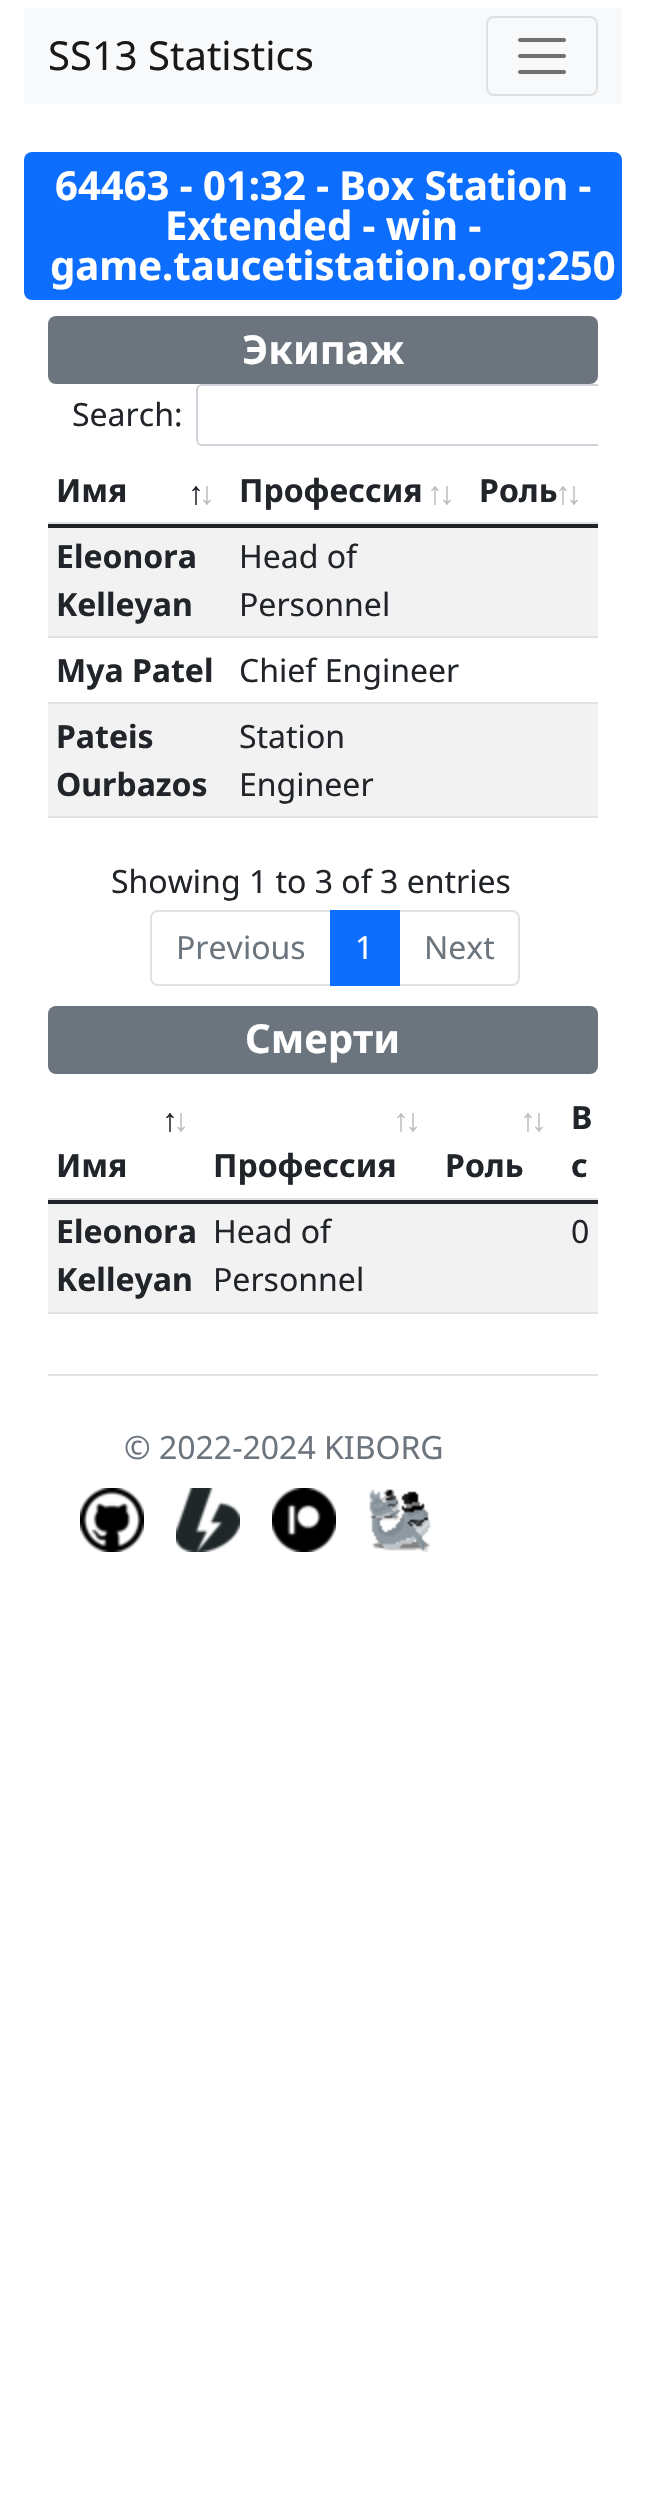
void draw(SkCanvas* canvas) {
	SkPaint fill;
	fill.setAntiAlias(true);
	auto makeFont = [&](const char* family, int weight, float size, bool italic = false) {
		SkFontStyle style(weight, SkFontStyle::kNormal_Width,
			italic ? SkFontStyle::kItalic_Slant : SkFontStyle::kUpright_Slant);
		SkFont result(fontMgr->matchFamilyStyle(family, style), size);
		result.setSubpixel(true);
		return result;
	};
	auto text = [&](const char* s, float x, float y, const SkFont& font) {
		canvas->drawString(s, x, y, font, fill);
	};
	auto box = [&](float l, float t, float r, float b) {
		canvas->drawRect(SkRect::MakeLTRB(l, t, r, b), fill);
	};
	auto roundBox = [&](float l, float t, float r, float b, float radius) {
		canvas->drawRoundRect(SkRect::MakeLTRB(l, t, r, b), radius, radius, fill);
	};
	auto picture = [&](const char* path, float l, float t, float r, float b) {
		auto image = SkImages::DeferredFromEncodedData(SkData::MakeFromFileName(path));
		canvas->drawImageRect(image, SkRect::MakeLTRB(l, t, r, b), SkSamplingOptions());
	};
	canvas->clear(0xFFFFFFFF);
	fill.setColor(0xFFF2F2F2);
	box(48, 1204, 598, 1312);
	box(48, 528, 598, 636);
	fill.setColor(0xFFF8F9FA);
	box(24, 8, 622, 104);
	fill.setStyle(SkPaint::kStroke_Style);
	fill.setStrokeWidth(2);
	fill.setColor(0xFFDFE0E1);
	canvas->drawRoundRect(SkRect::MakeLTRB(487, 17, 597, 95), 7, 7, fill);
	fill.setStrokeWidth(4);
	fill.setStrokeCap(SkPaint::kRound_Cap);
	fill.setColor(0xFF707071);
	canvas->drawPath(SkPathBuilder().moveTo(520, 40).lineTo(564, 40).moveTo(520, 56).lineTo(564, 56).moveTo(520, 72).lineTo(564, 72).detach(), fill);
	fill.setStyle(SkPaint::kFill_Style);
	fill.setColor(0xFF0D6EFD);
	roundBox(24, 152, 622, 300, 8);
	fill.setColor(0xFF6C757D);
	roundBox(48, 316, 598, 384, 8);
	canvas->save();
	canvas->clipRect(SkRect::MakeLTRB(48, 384, 598, 990));
	fill.setStyle(SkPaint::kStroke_Style);
	fill.setStrokeWidth(2);
	fill.setStrokeCap(SkPaint::kButt_Cap);
	fill.setColor(0xFFCED4DA);
	canvas->drawRoundRect(SkRect::MakeLTRB(197, 385, 631, 445), 5, 5, fill);
	canvas->restore();
	fill.setStyle(SkPaint::kFill_Style);
	fill.setColor(0xFFDEE2E6);
	box(48, 522, 598, 524);
	fill.setColor(0xFF1F2327);
	box(48, 524, 598, 528);
	fill.setColor(0xFFDEE2E6);
	box(48, 636, 598, 638);
	box(48, 702, 598, 704);
	fill.setColor(0xFFF2F2F2);
	box(48, 704, 598, 816);
	fill.setColor(0xFFDEE2E6);
	box(48, 816, 598, 818);
	fill.setStyle(SkPaint::kStroke_Style);
	canvas->drawPath(SkPathBuilder().moveTo(158, 911).lineTo(331, 911).lineTo(331, 985).lineTo(158, 985).cubicTo(154, 985, 151, 982, 151, 978).lineTo(151, 918).cubicTo(151, 914, 154, 911, 158, 911).close().detach(), fill);
	canvas->drawPath(SkPathBuilder().moveTo(399, 911).lineTo(512, 911).cubicTo(516, 911, 519, 914, 519, 918).lineTo(519, 978).cubicTo(519, 982, 516, 985, 512, 985).lineTo(399, 985).close().detach(), fill);
	fill.setStyle(SkPaint::kFill_Style);
	fill.setColor(0xFF0D6EFD);
	box(330, 910, 400, 986);
	fill.setColor(0xFF6C757D);
	roundBox(48, 1006, 598, 1074, 8);
	fill.setColor(0xFFDEE2E6);
	box(48, 1198, 598, 1200);
	fill.setColor(0xFF1F2327);
	box(48, 1200, 598, 1204);
	fill.setColor(0xFFDEE2E6);
	box(48, 1312, 598, 1314);
	box(48, 1374, 598, 1376);
	picture("image0.png", 80, 1488, 144, 1552);
	picture("image1.png", 176, 1488, 240, 1552);
	picture("image2.png", 272, 1488, 336, 1552);
	picture("image3.png", 369, 1489, 431, 1552);
	auto font1 = makeFont("Noto Sans", 400, 40);
	fill.setColor(0xFF191919);
	text("SS13 Statistics", 48, 70, font1);
	auto font2 = makeFont("Noto Sans", 700, 40);
	fill.setColor(0xFFFFFFFF);
	text("64463 - 01:32 - Box Station -", 55, 200, font2);
	text("Extended - win -", 165, 240, font2);
	text("game.taucetistation.org:250", 50, 280, font2);
	text("Экипаж", 242, 364, font2);
	auto font3 = makeFont("Noto Sans", 400, 32);
	fill.setColor(0xFF212529);
	text("Search:", 72, 426, font3);
	auto font4 = makeFont("Noto Sans", 700, 32);
	text("Имя", 56, 502, font4);
	auto font5 = makeFont("Liberation Sans", 700, 32);
	text("↑", 188, 504, font5);
	fill.setColor(0xFFBCBEBF);
	text("↓", 199, 504, font5);
	fill.setColor(0xFF212529);
	text("Профессия", 239, 502, font4);
	fill.setColor(0xFFBCBEBF);
	text("↑", 427, 504, font5);
	text("↓", 439, 504, font5);
	fill.setColor(0xFF212529);
	text("Роль", 479, 502, font4);
	fill.setColor(0xFFBCBEBF);
	text("↑", 555, 504, font5);
	text("↓", 566, 504, font5);
	fill.setColor(0xFF212529);
	text("Eleonora", 56, 568, font4);
	text("Kelleyan", 56, 616, font4);
	text("Head of", 239, 568, font3);
	text("Personnel", 239, 616, font3);
	text("Mya Patel", 56, 682, font4);
	text("Chief Engineer", 239, 682, font3);
	text("Pateis", 56, 748, font4);
	text("Ourbazos", 56, 796, font4);
	text("Station", 239, 748, font3);
	text("Engineer", 239, 796, font3);
	text("Showing 1 to 3 of 3 entries", 111, 893, font3);
	fill.setColor(0xFF6C757D);
	text("Previous", 176, 959, font3);
	fill.setColor(0xFFFFFFFF);
	text("1", 355, 959, font3);
	fill.setColor(0xFF6C757D);
	text("Next", 424, 959, font3);
	fill.setColor(0xFFFFFFFF);
	text("Смерти", 245, 1053, font2);
	fill.setColor(0xFF212529);
	text("↑", 162, 1131, font5);
	fill.setColor(0xFFBCBEBF);
	text("↓", 173, 1131, font5);
	fill.setColor(0xFF212529);
	text("Имя", 56, 1177, font4);
	fill.setColor(0xFFBCBEBF);
	text("↑", 393, 1131, font5);
	text("↓", 405, 1131, font5);
	fill.setColor(0xFF212529);
	text("Профессия", 213, 1177, font4);
	fill.setColor(0xFFBCBEBF);
	text("↑", 520, 1131, font5);
	text("↓", 531, 1131, font5);
	fill.setColor(0xFF212529);
	text("Роль", 445, 1177, font4);
	text("В", 571, 1129, font4);
	text("с", 571, 1177, font4);
	text("Eleonora", 56, 1243, font4);
	text("Kelleyan", 56, 1291, font4);
	text("Head of", 213, 1243, font3);
	text("Personnel", 213, 1291, font3);
	text("0", 571, 1243, font3);
	fill.setColor(0xFF6C757D);
	text("© 2022-2024 KIBORG", 124, 1459, font3);
}
